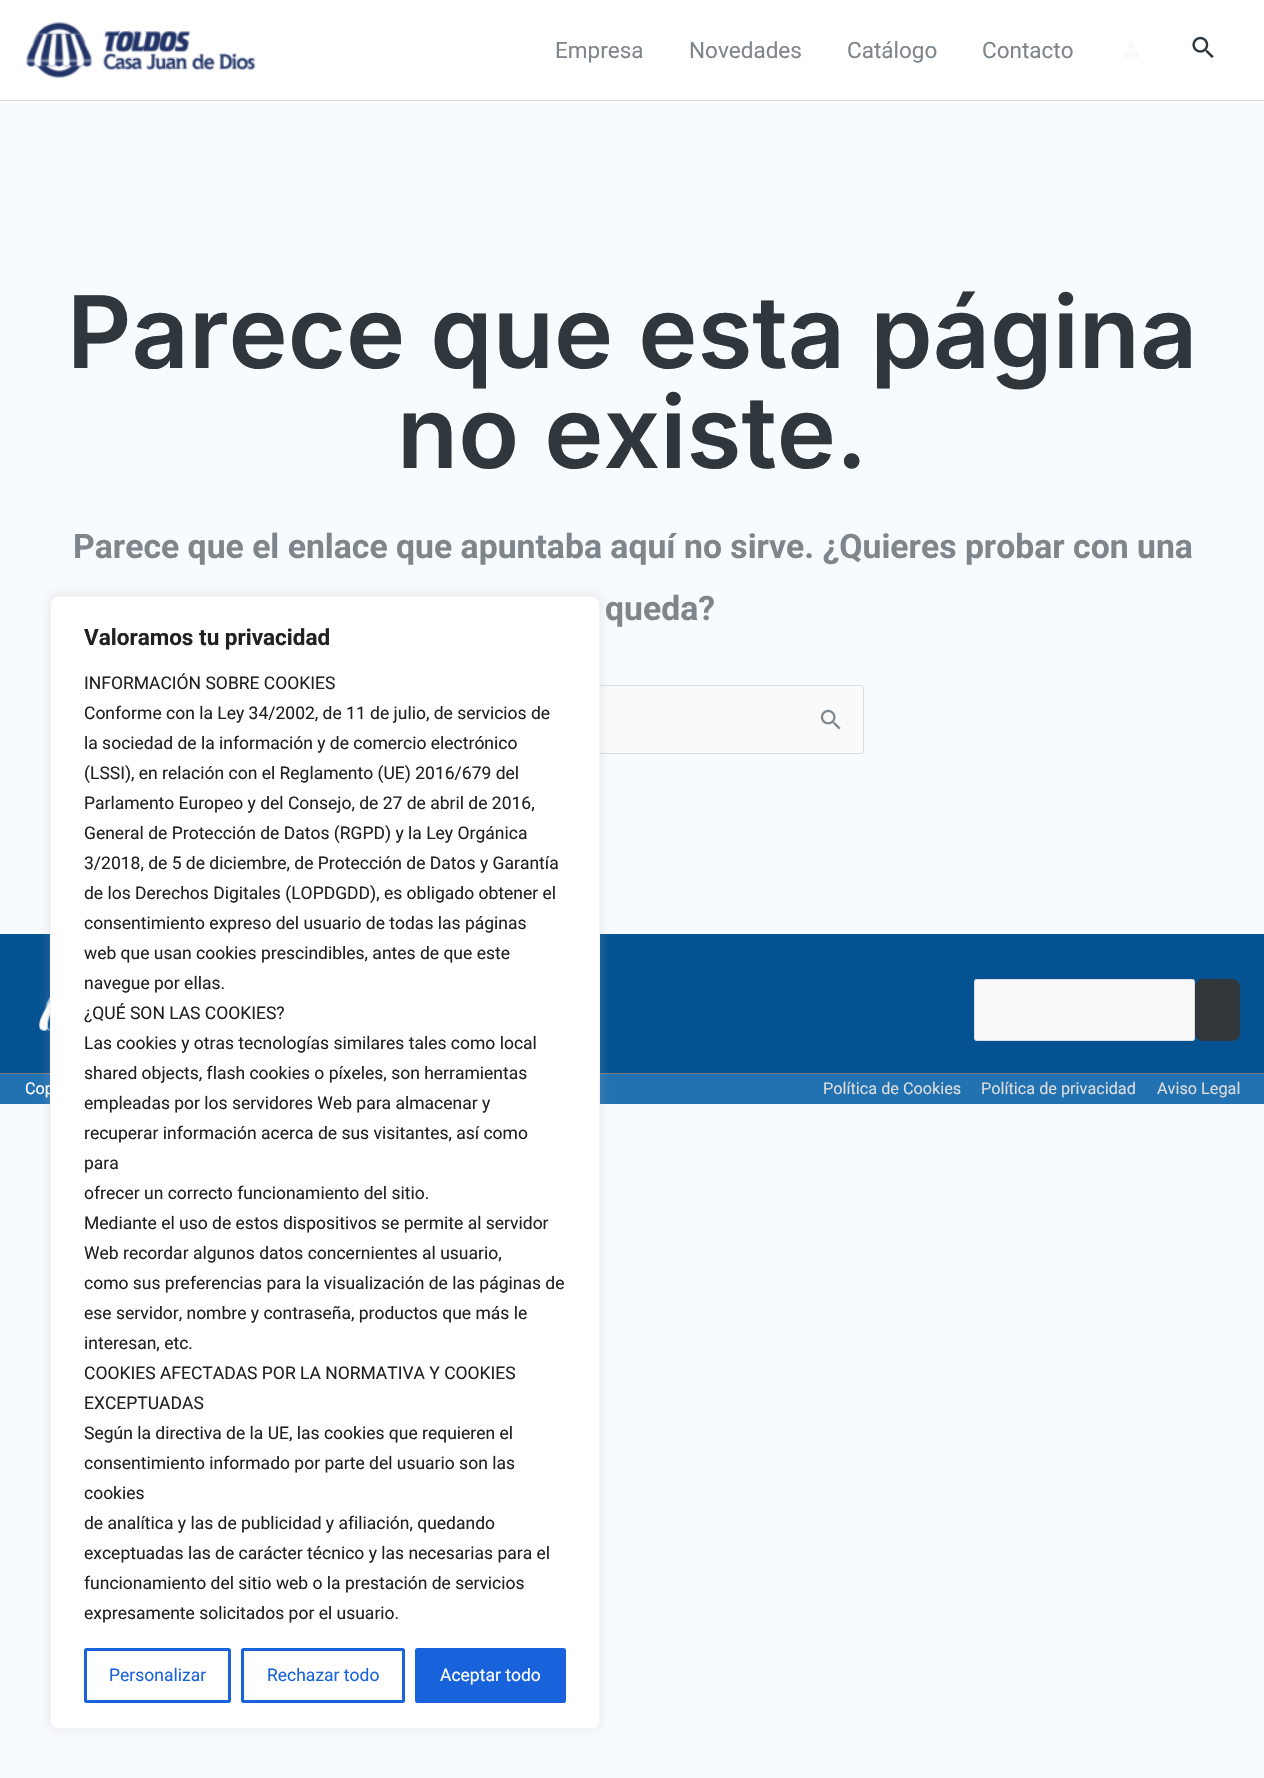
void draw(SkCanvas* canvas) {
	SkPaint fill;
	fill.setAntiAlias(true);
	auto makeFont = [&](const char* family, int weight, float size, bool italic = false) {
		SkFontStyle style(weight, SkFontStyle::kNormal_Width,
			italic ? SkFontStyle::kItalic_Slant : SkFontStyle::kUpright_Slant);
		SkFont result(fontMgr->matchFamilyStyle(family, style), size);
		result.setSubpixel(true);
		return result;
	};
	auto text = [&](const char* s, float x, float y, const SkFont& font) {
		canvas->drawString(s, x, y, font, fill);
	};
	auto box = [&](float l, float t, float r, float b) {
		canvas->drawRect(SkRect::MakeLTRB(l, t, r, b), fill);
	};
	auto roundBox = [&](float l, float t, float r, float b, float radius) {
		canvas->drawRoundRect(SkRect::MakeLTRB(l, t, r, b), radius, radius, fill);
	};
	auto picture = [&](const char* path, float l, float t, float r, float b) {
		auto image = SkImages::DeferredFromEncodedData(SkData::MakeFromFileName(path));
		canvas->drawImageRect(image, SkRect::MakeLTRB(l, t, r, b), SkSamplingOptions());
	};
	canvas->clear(0xFFF8FBFE);
	fill.setColor(0xFFFFFFFF);
	box(0, 0, 1264, 100);
	fill.setColor(0xFFDDDDDD);
	box(0, 100, 1264, 101);
	picture("image0.png", 26, 22, 256, 78);
	picture("image1.png", 1123, 41, 1139, 59);
	picture("image2.png", 1192, 36, 1214, 58);
	fill.setColor(0xFFFAFAFA);
	canvas->drawRoundRect(SkRect::MakeLTRB(401.5f, 685.5f, 863.5f, 753.5f), 2, 2, fill);
	fill.setStyle(SkPaint::kStroke_Style);
	fill.setStrokeWidth(1);
	fill.setColor(0xFFDDDDDD);
	canvas->drawRoundRect(SkRect::MakeLTRB(401.5f, 685.5f, 863.5f, 753.5f), 2, 2, fill);
	picture("image3.png", 820, 709, 841, 730);
	fill.setStyle(SkPaint::kFill_Style);
	fill.setColor(0xFF045291);
	box(0, 934, 1264, 1073);
	picture("image4.png", 39, 996, 50, 1031);
	fill.setColor(0xFFFAFAFA);
	canvas->drawRoundRect(SkRect::MakeLTRB(974.5f, 979.5f, 1194.5f, 1040.5f), 2, 2, fill);
	fill.setStyle(SkPaint::kStroke_Style);
	fill.setColor(0xFFDDDDDD);
	canvas->drawRoundRect(SkRect::MakeLTRB(974.5f, 979.5f, 1194.5f, 1040.5f), 2, 2, fill);
	fill.setStyle(SkPaint::kFill_Style);
	fill.setColor(0xFF32373C);
	roundBox(1195, 979, 1240, 1041, 8);
	fill.setColor(0xFF7A7A7A);
	box(0, 1073, 1264, 1074);
	fill.setColor(0xFF2271B1);
	box(0, 1074, 1264, 1104);
	fill.setColor(0x4DACABAB);
	fill.setMaskFilter(SkMaskFilter::MakeBlur(kNormal_SkBlurStyle, 6));
	canvas->drawRoundRect(SkRect::MakeLTRB(50, 595, 600, 1728), 8, 8, fill);
	fill.setMaskFilter(nullptr);
	fill.setColor(0xFFFFFFFF);
	canvas->drawRoundRect(SkRect::MakeLTRB(50.5f, 596.5f, 599.5f, 1728.5f), 7.5f, 7.5f, fill);
	fill.setStyle(SkPaint::kStroke_Style);
	fill.setColor(0xFFF4F4F4);
	canvas->drawRoundRect(SkRect::MakeLTRB(50.5f, 596.5f, 599.5f, 1728.5f), 7.5f, 7.5f, fill);
	fill.setStrokeWidth(3);
	fill.setColor(0xFF1863DC);
	canvas->drawRoundRect(SkRect::MakeLTRB(85.5f, 1649.5f, 229.5f, 1701.5f), 1, 1, fill);
	canvas->drawRoundRect(SkRect::MakeLTRB(242.5f, 1649.5f, 403.5f, 1701.5f), 1, 1, fill);
	fill.setStyle(SkPaint::kFill_Style);
	canvas->drawRoundRect(SkRect::MakeLTRB(416.5f, 1649.5f, 564.5f, 1701.5f), 1, 1, fill);
	fill.setStyle(SkPaint::kStroke_Style);
	canvas->drawRoundRect(SkRect::MakeLTRB(416.5f, 1649.5f, 564.5f, 1701.5f), 1, 1, fill);
	auto font1 = makeFont("Roboto", 400, 22.5f);
	fill.setStyle(SkPaint::kFill_Style);
	fill.setColor(0xFF7E868C);
	text("Empresa", 555, 58, font1);
	text("Novedades", 689, 58, font1);
	text("Catálogo", 847, 58, font1);
	text("Contacto", 982, 58, font1);
	auto font2 = makeFont("Inter", 600, 100);
	fill.setColor(0xFF2F373D);
	text("Parece que esta página", 67, 368, font2);
	text("no existe.", 397, 468, font2);
	auto font3 = makeFont("Roboto", 700, 33.75f);
	fill.setColor(0xFF7E868C);
	text("Parece que el enlace que apuntaba aquí no sirve. ¿Quieres probar con una", 73, 558, font3);
	text("queda?", 605, 620, font3);
	auto font4 = makeFont("Roboto", 400, 16.25f);
	fill.setColor(0xFFFFFFFF);
	text("Cop", 25, 1094, font4);
	fill.setColor(0xFFDDDDDD);
	text("Política de Cookies", 823, 1094, font4);
	text("Política de privacidad", 981, 1094, font4);
	text("Aviso Legal", 1157, 1094, font4);
	auto font5 = makeFont("Roboto", 700, 22.5f);
	fill.setColor(0xFF212121);
	text("Valoramos tu privacidad", 84, 645, font5);
	auto font6 = makeFont("Roboto", 400, 17.5f);
	text("INFORMACIÓN SOBRE COOKIES", 84, 689, font6);
	text("Conforme con la Ley 34/2002, de 11 de julio, de servicios de", 84, 719, font6);
	text("la sociedad de la información y de comercio electrónico", 84, 749, font6);
	text("(LSSI), en relación con el Reglamento (UE) 2016/679 del", 84, 779, font6);
	text("Parlamento Europeo y del Consejo, de 27 de abril de 2016,", 84, 809, font6);
	text("General de Protección de Datos (RGPD) y la Ley Orgánica", 84, 839, font6);
	text("3/2018, de 5 de diciembre, de Protección de Datos y Garantía", 84, 869, font6);
	text("de los Derechos Digitales (LOPDGDD), es obligado obtener el", 84, 899, font6);
	text("consentimiento expreso del usuario de todas las páginas", 84, 929, font6);
	text("web que usan cookies prescindibles, antes de que este", 84, 959, font6);
	text("navegue por ellas.", 84, 989, font6);
	text("¿QUÉ SON LAS COOKIES?", 84, 1019, font6);
	text("Las cookies y otras tecnologías similares tales como local", 84, 1049, font6);
	text("shared objects, flash cookies o píxeles, son herramientas", 84, 1079, font6);
	text("empleadas por los servidores Web para almacenar y", 84, 1109, font6);
	text("recuperar información acerca de sus visitantes, así como", 84, 1139, font6);
	text("para", 84, 1169, font6);
	text("ofrecer un correcto funcionamiento del sitio.", 84, 1199, font6);
	text("Mediante el uso de estos dispositivos se permite al servidor", 84, 1229, font6);
	text("Web recordar algunos datos concernientes al usuario,", 84, 1259, font6);
	text("como sus preferencias para la visualización de las páginas de", 84, 1289, font6);
	text("ese servidor, nombre y contraseña, productos que más le", 84, 1319, font6);
	text("interesan, etc.", 84, 1349, font6);
	text("COOKIES AFECTADAS POR LA NORMATIVA Y COOKIES", 84, 1379, font6);
	text("EXCEPTUADAS", 84, 1409, font6);
	text("Según la directiva de la UE, las cookies que requieren el", 84, 1439, font6);
	text("consentimiento informado por parte del usuario son las", 84, 1469, font6);
	text("cookies", 84, 1499, font6);
	text("de analítica y las de publicidad y afiliación, quedando", 84, 1529, font6);
	text("exceptuadas las de carácter técnico y las necesarias para el", 84, 1559, font6);
	text("funcionamiento del sitio web o la prestación de servicios", 84, 1589, font6);
	text("expresamente solicitados por el usuario.", 84, 1619, font6);
	fill.setColor(0xFF1863DC);
	text("Personalizar", 109, 1681, font6);
	text("Rechazar todo", 267, 1681, font6);
	fill.setColor(0xFFFFFFFF);
	text("Aceptar todo", 440, 1681, font6);
}
